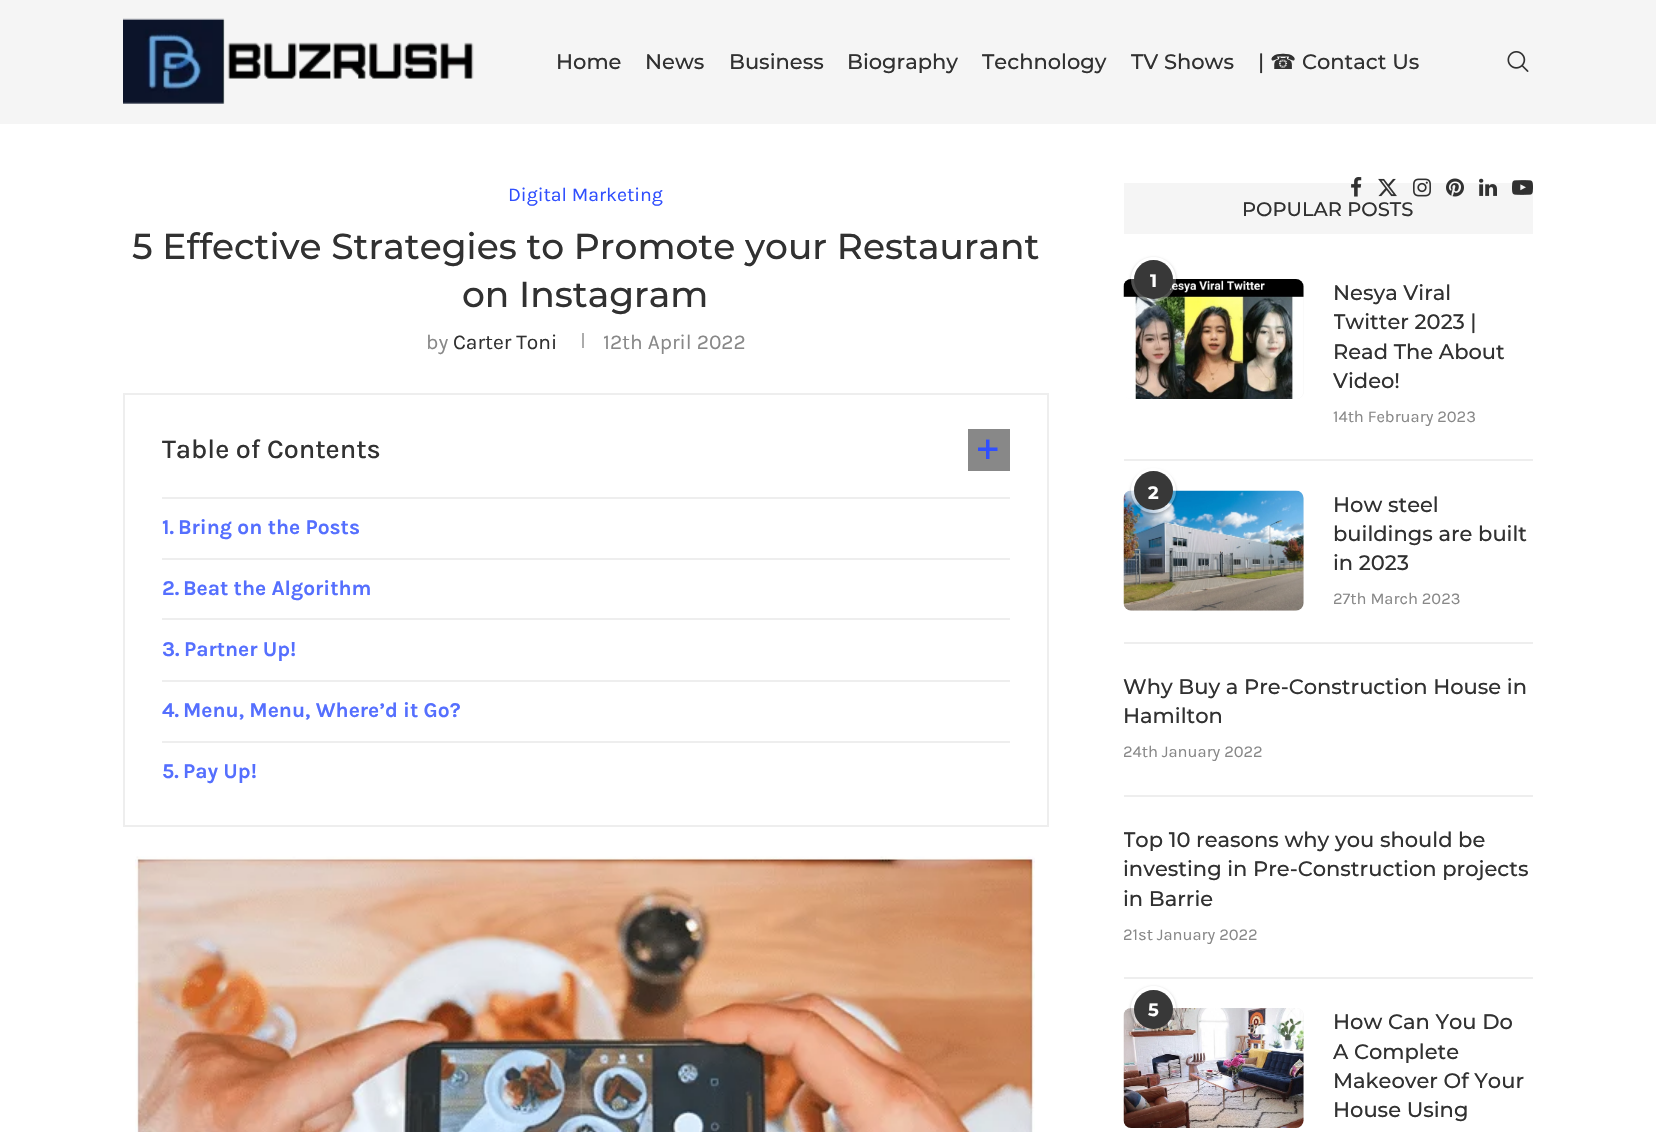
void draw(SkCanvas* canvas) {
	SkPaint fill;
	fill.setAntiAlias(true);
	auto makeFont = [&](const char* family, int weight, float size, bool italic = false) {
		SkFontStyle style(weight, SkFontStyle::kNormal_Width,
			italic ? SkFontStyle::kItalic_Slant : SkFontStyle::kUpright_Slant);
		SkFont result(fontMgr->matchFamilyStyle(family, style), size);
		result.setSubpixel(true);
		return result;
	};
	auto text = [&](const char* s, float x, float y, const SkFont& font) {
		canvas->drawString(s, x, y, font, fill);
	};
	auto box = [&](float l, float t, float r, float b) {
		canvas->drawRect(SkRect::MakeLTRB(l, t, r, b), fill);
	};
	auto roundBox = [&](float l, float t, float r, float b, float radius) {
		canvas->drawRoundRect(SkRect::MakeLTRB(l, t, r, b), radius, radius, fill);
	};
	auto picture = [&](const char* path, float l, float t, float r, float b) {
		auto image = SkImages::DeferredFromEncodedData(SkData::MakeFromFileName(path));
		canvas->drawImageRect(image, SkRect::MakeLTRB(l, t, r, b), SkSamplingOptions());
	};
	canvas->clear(0xFFFFFFFF);
	fill.setColor(0xFFF5F5F5);
	box(0, 0, 1656, 124);
	picture("image0.png", 123, 18, 474, 104);
	picture("image1.png", 1507, 51, 1529, 72);
	box(1124, 183, 1533, 234);
	picture("image2.png", 1351, 177, 1362, 197);
	picture("image3.png", 1378, 178, 1397, 197);
	picture("image4.png", 1413, 178, 1431, 197);
	picture("image5.png", 1446, 178, 1464, 197);
	picture("image6.png", 1479, 178, 1497, 196);
	picture("image7.png", 1512, 180, 1533, 195);
	fill.setColor(0xFFACACAC);
	box(582, 333, 584, 348);
	fill.setStyle(SkPaint::kStroke_Style);
	fill.setStrokeWidth(2);
	fill.setColor(0xFFEEEEEE);
	canvas->drawRect(SkRect::MakeLTRB(124, 394, 1048, 826), fill);
	fill.setStyle(SkPaint::kFill_Style);
	fill.setColor(0xFF888888);
	box(968, 429, 1010, 471);
	picture("image8.png", 978, 439, 998, 459);
	fill.setColor(0xFFEEEEEE);
	box(162, 497, 1010, 499);
	box(162, 558, 1010, 560);
	box(162, 618, 1010, 620);
	box(162, 680, 1010, 682);
	box(162, 741, 1010, 743);
	picture("image9.png", 135, 856, 1035, 1132);
	box(1124, 459, 1533, 461);
	fill.setColor(0xFFF5F5F5);
	roundBox(1124, 279, 1304, 399, 8);
	picture("image10.png", 1123, 279, 1304, 399);
	canvas->save();
	canvas->clipPath(SkPathBuilder(SkPathFillType::kEvenOdd).moveTo(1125, 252).lineTo(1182, 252).lineTo(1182, 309).lineTo(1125, 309).close().moveTo(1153.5f, 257).cubicTo(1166, 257, 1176, 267, 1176, 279.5f).cubicTo(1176, 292, 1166, 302, 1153.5f, 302).cubicTo(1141, 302, 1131, 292, 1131, 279.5f).cubicTo(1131, 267, 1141, 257, 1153.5f, 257).close().detach(), true);
	fill.setColor(0x40000000);
	fill.setMaskFilter(SkMaskFilter::MakeBlur(kNormal_SkBlurStyle, 1.5f));
	canvas->drawRoundRect(SkRect::MakeLTRB(1131, 258, 1176, 303), 22.5f, 22.5f, fill);
	fill.setMaskFilter(nullptr);
	canvas->restore();
	fill.setColor(0x4DFFFFFF);
	canvas->drawCircle(1153.5f, 279.5f, 22.5f, fill);
	fill.setColor(0xFF383838);
	canvas->drawCircle(1153.5f, 279.5f, 19.5f, fill);
	fill.setColor(0xFFEEEEEE);
	box(1124, 642, 1533, 644);
	fill.setColor(0xFFF5F5F5);
	roundBox(1124, 491, 1304, 611, 8);
	picture("image11.png", 1123, 490, 1304, 611);
	canvas->save();
	canvas->clipPath(SkPathBuilder(SkPathFillType::kEvenOdd).moveTo(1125, 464).lineTo(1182, 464).lineTo(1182, 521).lineTo(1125, 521).close().moveTo(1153.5f, 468).cubicTo(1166, 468, 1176, 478, 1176, 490.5f).cubicTo(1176, 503, 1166, 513, 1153.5f, 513).cubicTo(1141, 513, 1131, 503, 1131, 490.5f).cubicTo(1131, 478, 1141, 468, 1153.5f, 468).close().detach(), true);
	fill.setColor(0x40000000);
	fill.setMaskFilter(SkMaskFilter::MakeBlur(kNormal_SkBlurStyle, 1.5f));
	canvas->drawRoundRect(SkRect::MakeLTRB(1131, 470, 1176, 515), 22.5f, 22.5f, fill);
	fill.setMaskFilter(nullptr);
	canvas->restore();
	fill.setColor(0x4DFFFFFF);
	canvas->drawCircle(1153.5f, 490.5f, 22.5f, fill);
	fill.setColor(0xFF383838);
	canvas->drawCircle(1153.5f, 490.5f, 19.5f, fill);
	fill.setColor(0xFFEEEEEE);
	box(1124, 795, 1533, 797);
	box(1124, 977, 1533, 979);
	fill.setColor(0xFFF5F5F5);
	roundBox(1124, 1008, 1304, 1128, 8);
	picture("image12.png", 1123, 1008, 1304, 1128);
	canvas->save();
	canvas->clipPath(SkPathBuilder(SkPathFillType::kEvenOdd).moveTo(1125, 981).lineTo(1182, 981).lineTo(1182, 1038).lineTo(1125, 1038).close().moveTo(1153.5f, 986).cubicTo(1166, 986, 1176, 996, 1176, 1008.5f).cubicTo(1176, 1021, 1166, 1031, 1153.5f, 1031).cubicTo(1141, 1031, 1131, 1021, 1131, 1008.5f).cubicTo(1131, 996, 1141, 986, 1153.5f, 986).close().detach(), true);
	fill.setColor(0x40000000);
	fill.setMaskFilter(SkMaskFilter::MakeBlur(kNormal_SkBlurStyle, 1.5f));
	canvas->drawRoundRect(SkRect::MakeLTRB(1131, 987, 1176, 1032), 22.5f, 22.5f, fill);
	fill.setMaskFilter(nullptr);
	canvas->restore();
	fill.setColor(0x4DFFFFFF);
	canvas->drawCircle(1153.5f, 1008.5f, 22.5f, fill);
	fill.setColor(0xFF383838);
	canvas->drawCircle(1153.5f, 1009.5f, 19.5f, fill);
	auto font1 = makeFont("Montserrat", 500, 21);
	fill.setColor(0xFF313131);
	text("Home", 556, 69, font1);
	text("News", 645, 69, font1);
	text("Business", 729, 69, font1);
	text("Biography", 847, 69, font1);
	text("Technology", 982, 69, font1);
	text("TV Shows", 1131, 69, font1);
	text("|", 1258, 69, font1);
	auto font2 = makeFont("DejaVu Sans", 400, 21);
	text("☎", 1270, 69, font2);
	text("Contact Us", 1302, 69, font1);
	auto font3 = makeFont("Karla", 400, 19.5f);
	fill.setColor(0xFF304FFE);
	text("Digital Marketing", 508, 201, font3);
	auto font4 = makeFont("Montserrat", 500, 36);
	fill.setColor(0xFF313131);
	text("5 Effective Strategies to Promote your Restaurant", 132, 259, font4);
	text("on Instagram", 462, 307, font4);
	auto font5 = makeFont("Karla", 400, 21);
	fill.setColor(0xFF888888);
	text("by", 426, 349, font5);
	fill.setColor(0xFF313131);
	text("Carter Toni", 453, 349, font5);
	fill.setColor(0xFF888888);
	text("12th April 2022", 603, 349, font5);
	auto font6 = makeFont("Karla", 500, 27);
	fill.setColor(0xFF313131);
	text("Table of Contents", 162, 458, font6);
	auto font7 = makeFont("Karla", 700, 21);
	fill.setColor(0xFF556FFE);
	text("1.", 162, 534, font7);
	text("Bring on the Posts", 178, 534, font7);
	text("2.", 162, 595, font7);
	text("Beat the Algorithm", 183, 595, font7);
	text("3.", 162, 656, font7);
	text("Partner Up!", 184, 656, font7);
	text("4.", 162, 717, font7);
	text("Menu, Menu, Where’d it Go?", 183, 717, font7);
	text("5.", 162, 778, font7);
	text("Pay Up!", 183, 778, font7);
	auto font8 = makeFont("Montserrat", 500, 19.5f);
	fill.setColor(0xFF313131);
	text("POPULAR POSTS", 1242, 216, font8);
	auto font9 = makeFont("Montserrat", 700, 18);
	fill.setColor(0xFFFFFFFF);
	text("1", 1150, 287, font9);
	fill.setColor(0xFF313131);
	text("Nesya Viral", 1333, 300, font1);
	canvas->save();
	canvas->clipRect(SkRect::MakeLTRB(1334, 279, 1533, 429));
	text("Twitter 2023 |", 1333, 329, font1);
	canvas->restore();
	text("Read The About", 1333, 359, font1);
	text("Video!", 1333, 388, font1);
	auto font10 = makeFont("Karla", 400, 16.5f);
	fill.setColor(0xFF888888);
	text("14th February 2023", 1333, 422, font10);
	fill.setColor(0xFFFFFFFF);
	text("2", 1148, 499, font9);
	fill.setColor(0xFF313131);
	text("How steel", 1333, 512, font1);
	text("buildings are built", 1333, 541, font1);
	text("in 2023", 1333, 570, font1);
	fill.setColor(0xFF888888);
	text("27th March 2023", 1333, 604, font10);
	fill.setColor(0xFF313131);
	text("Why Buy a Pre-Construction House in", 1123, 694, font1);
	text("Hamilton", 1123, 723, font1);
	fill.setColor(0xFF888888);
	text("24th January 2022", 1123, 757, font10);
	canvas->save();
	canvas->clipRect(SkRect::MakeLTRB(1124, 827, 1533, 947));
	fill.setColor(0xFF313131);
	text("Top 10 reasons why you should be", 1123, 847, font1);
	canvas->restore();
	text("investing in Pre-Construction projects", 1123, 876, font1);
	text("in Barrie", 1123, 906, font1);
	fill.setColor(0xFF888888);
	text("21st January 2022", 1123, 940, font10);
	fill.setColor(0xFFFFFFFF);
	text("5", 1148, 1016, font9);
	fill.setColor(0xFF313131);
	text("How Can You Do", 1333, 1029, font1);
	text("A Complete", 1333, 1059, font1);
	text("Makeover Of Your", 1333, 1088, font1);
	text("House Using", 1333, 1117, font1);
}
